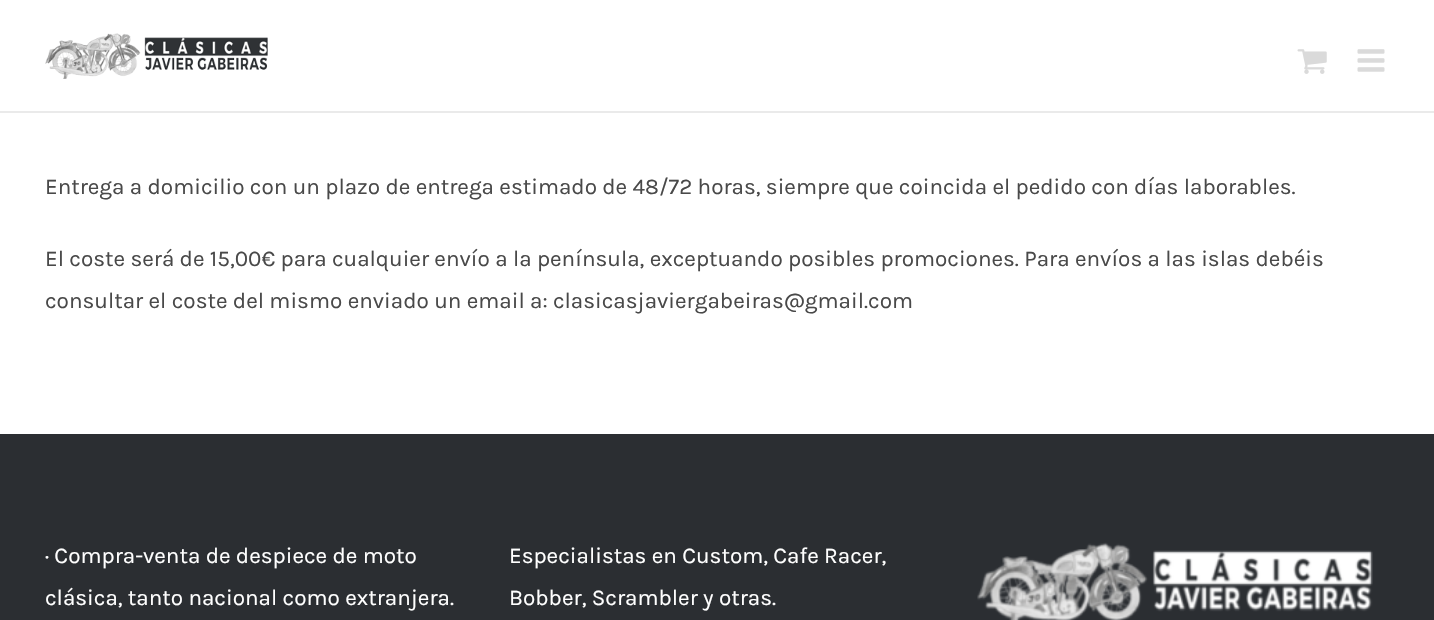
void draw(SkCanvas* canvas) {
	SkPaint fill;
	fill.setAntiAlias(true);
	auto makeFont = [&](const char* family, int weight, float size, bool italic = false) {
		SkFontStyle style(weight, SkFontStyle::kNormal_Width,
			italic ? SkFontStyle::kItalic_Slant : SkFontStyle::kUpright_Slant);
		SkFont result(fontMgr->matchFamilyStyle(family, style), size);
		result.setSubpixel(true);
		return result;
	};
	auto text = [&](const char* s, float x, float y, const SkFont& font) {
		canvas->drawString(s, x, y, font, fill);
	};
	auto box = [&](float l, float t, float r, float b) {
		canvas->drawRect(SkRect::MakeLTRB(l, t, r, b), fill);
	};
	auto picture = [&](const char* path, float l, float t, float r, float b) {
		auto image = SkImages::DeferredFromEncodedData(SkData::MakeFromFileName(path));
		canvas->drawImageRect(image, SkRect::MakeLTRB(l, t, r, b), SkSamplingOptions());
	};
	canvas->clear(0xFFFFFFFF);
	fill.setColor(0xFFEAEAEA);
	box(0, 111, 1434, 113);
	picture("image0.png", 45, 33, 268, 79);
	picture("image1.png", 1297, 49, 1327, 74);
	picture("image2.png", 1357, 49, 1385, 72);
	fill.setColor(0xFF2B2E32);
	box(0, 434, 1434, 620);
	picture("image3.png", 977, 542, 1373, 620);
	auto font1 = makeFont("Karla", 400, 22.5f);
	fill.setColor(0xFF494949);
	text("Entrega a domicilio con un plazo de entrega estimado de 48/72 horas, siempre que coincida el pedido con días laborables.", 45, 194, font1);
	text("El coste será de 15,00€ para cualquier envío a la península, exceptuando posibles promociones. Para envíos a las islas debéis", 45, 266, font1);
	text("consultar el coste del mismo enviado un email a: clasicasjaviergabeiras@gmail.com", 45, 308, font1);
	fill.setColor(0xFFFFFFFF);
	text("· Compra-venta de despiece de moto", 45, 563, font1);
	text("clásica, tanto nacional como extranjera.", 45, 605, font1);
	text("Especialistas en Custom, Cafe Racer,", 509, 563, font1);
	text("Bobber, Scrambler y otras.", 509, 605, font1);
}
